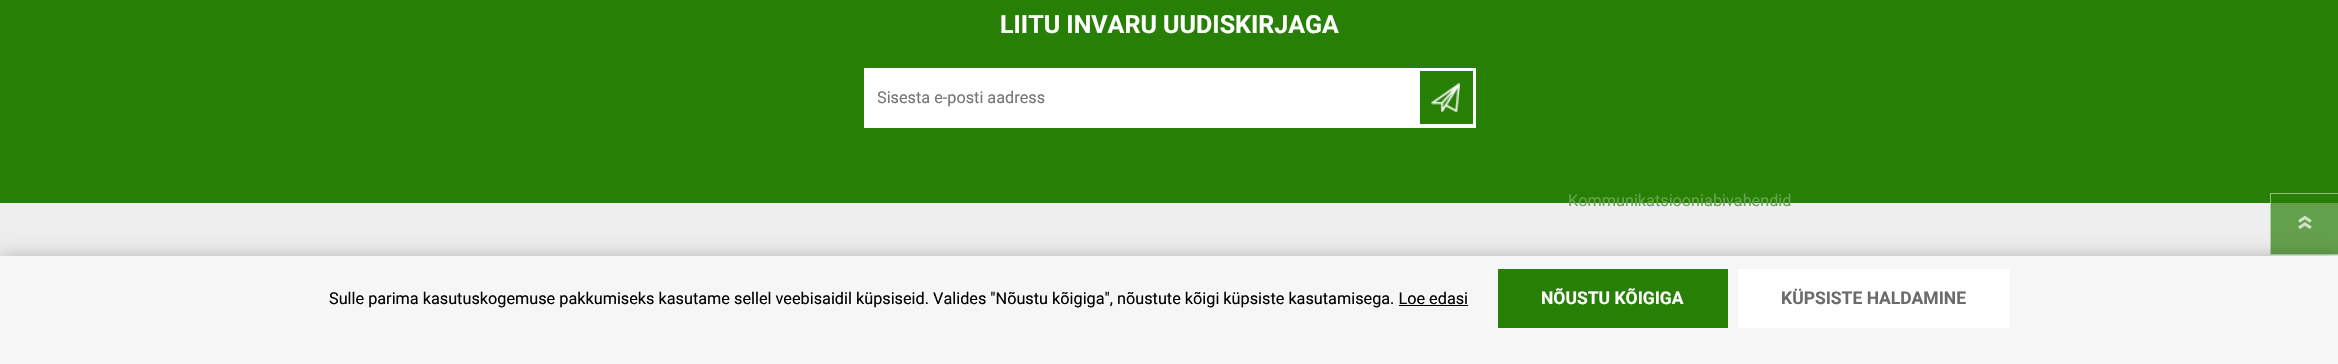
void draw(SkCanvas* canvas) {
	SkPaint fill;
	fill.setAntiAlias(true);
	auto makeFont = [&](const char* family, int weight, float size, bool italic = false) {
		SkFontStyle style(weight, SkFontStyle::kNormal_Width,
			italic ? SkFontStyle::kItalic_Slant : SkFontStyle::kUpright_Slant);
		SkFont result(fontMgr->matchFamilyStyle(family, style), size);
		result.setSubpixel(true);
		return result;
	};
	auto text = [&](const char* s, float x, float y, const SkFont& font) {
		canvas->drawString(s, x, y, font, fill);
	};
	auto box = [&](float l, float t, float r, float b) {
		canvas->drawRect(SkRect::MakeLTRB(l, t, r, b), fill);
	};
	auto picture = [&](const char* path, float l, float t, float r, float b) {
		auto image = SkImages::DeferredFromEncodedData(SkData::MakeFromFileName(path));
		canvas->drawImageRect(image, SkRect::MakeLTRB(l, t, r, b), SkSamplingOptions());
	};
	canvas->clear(0xFFEEEEEE);
	fill.setColor(0xFF63A04C);
	box(2270, 203, 2338, 255);
	fill.setColor(0xFF287F06);
	box(0, 0, 2338, 203);
	fill.setColor(0xFFFFFFFF);
	box(864, 68, 1476, 128);
	fill.setColor(0xFF287F06);
	box(1420, 71, 1473, 124);
	picture("image0.png", 1431, 83, 1460, 112);
	fill.setStyle(SkPaint::kStroke_Style);
	fill.setStrokeWidth(1);
	fill.setColor(0x7DFFFFFF);
	canvas->drawRect(SkRect::MakeLTRB(2270.5f, 193.5f, 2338.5f, 254.5f), fill);
	picture("image1.png", 2298, 215, 2312, 229);
	fill.setStyle(SkPaint::kFill_Style);
	fill.setColor(0x4D000000);
	fill.setMaskFilter(SkMaskFilter::MakeBlur(kNormal_SkBlurStyle, 9.5f));
	canvas->drawRect(SkRect::MakeLTRB(0, 258, 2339, 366), fill);
	fill.setMaskFilter(nullptr);
	fill.setColor(0xFFF6F6F6);
	box(0, 256, 2338, 364);
	fill.setColor(0xFF000000);
	box(1399, 305, 1468, 306);
	fill.setColor(0xFF287F06);
	box(1498, 269, 1728, 328);
	fill.setColor(0xFFFFFFFF);
	box(1738, 269, 2010, 328);
	auto font1 = makeFont("Roboto", 700, 25);
	text("LIITU INVARU UUDISKIRJAGA", 1000, 33, font1);
	canvas->save();
	canvas->clipRect(SkRect::MakeLTRB(878, 89, 1410, 108));
	auto font2 = makeFont("Roboto", 400, 16.25f);
	fill.setColor(0xFF757575);
	text("Sisesta e-posti aadress", 877, 103, font2);
	canvas->restore();
	fill.setColor(0xFF68A352);
	text("Kommunikatsiooniabivahendid", 1568, 206, font2);
	fill.setColor(0xFF000000);
	text("Sulle parima kasutuskogemuse pakkumiseks kasutame sellel veebisaidil küpsiseid. Valides \"Nõustu kõigiga\", nõustute kõigi küpsiste kasutamisega. Loe edasi", 329, 304, font2);
	auto font3 = makeFont("Roboto", 700, 17.5f);
	fill.setColor(0xFFFFFFFF);
	text("NÕUSTU KÕIGIGA", 1541, 304, font3);
	fill.setColor(0xFF6B6B6B);
	text("KÜPSISTE HALDAMINE", 1781, 304, font3);
}
